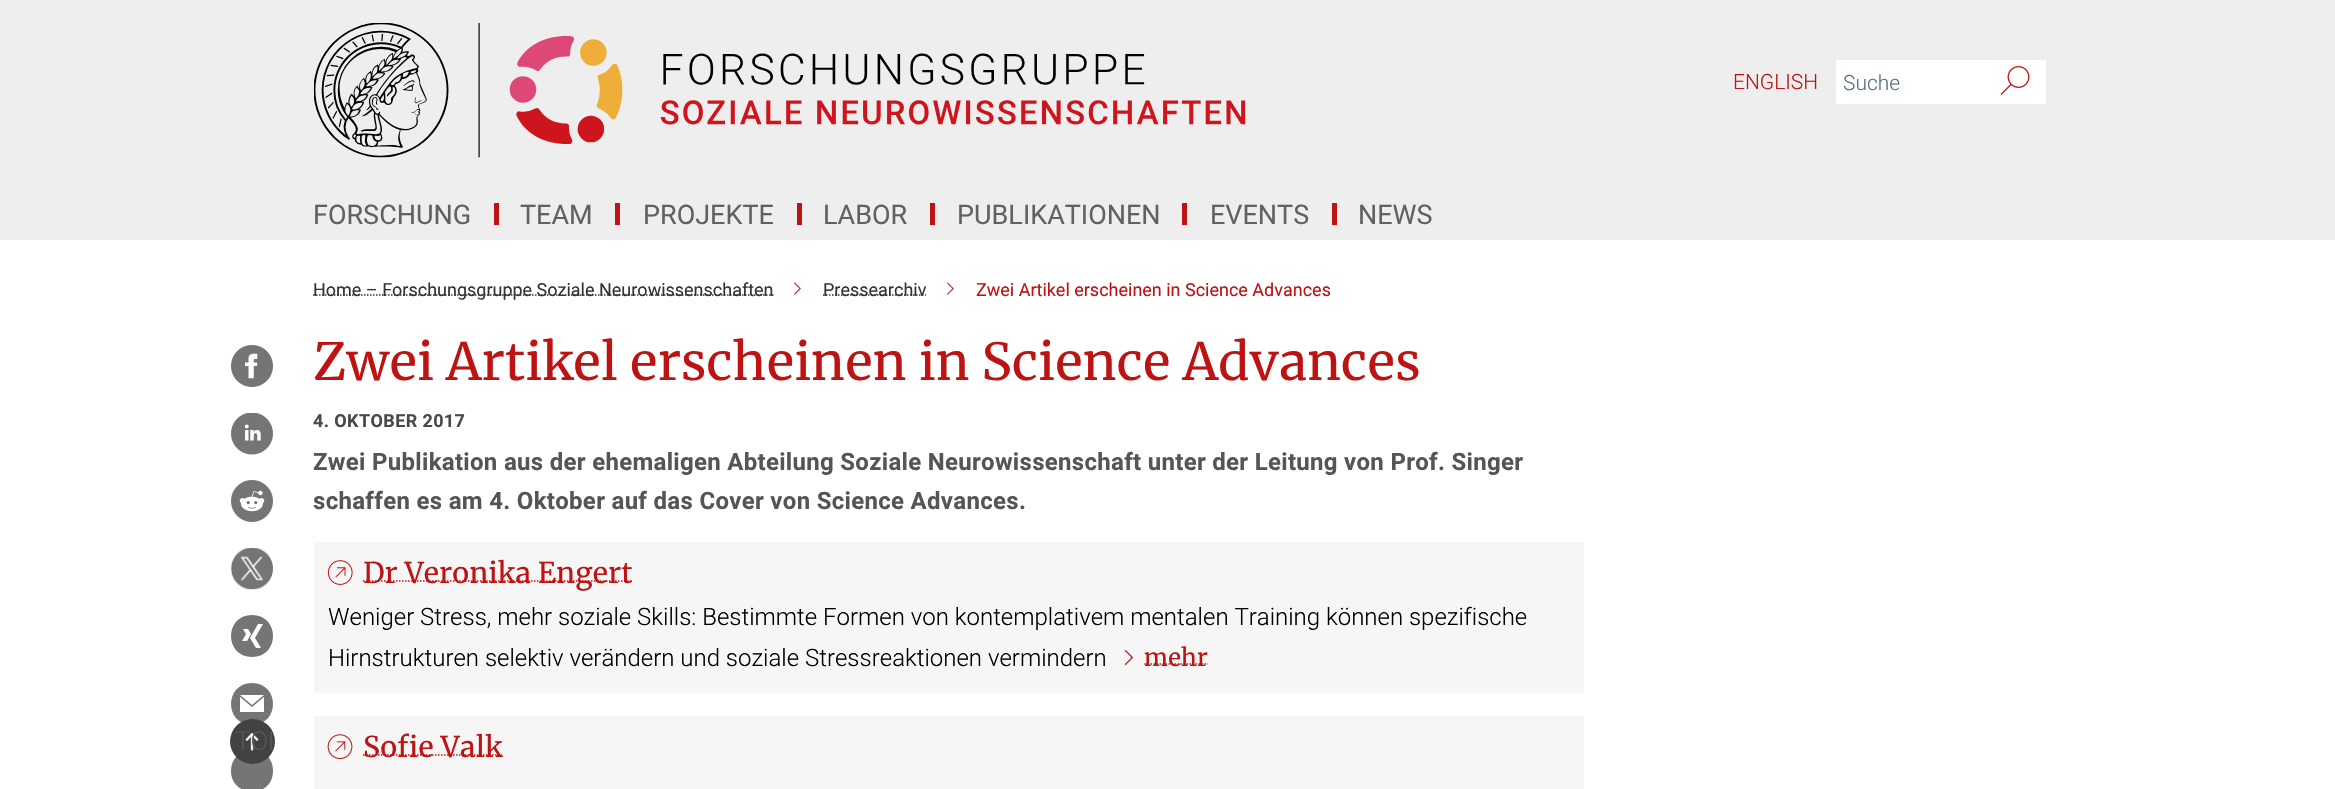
void draw(SkCanvas* canvas) {
	SkPaint fill;
	fill.setAntiAlias(true);
	auto makeFont = [&](const char* family, int weight, float size, bool italic = false) {
		SkFontStyle style(weight, SkFontStyle::kNormal_Width,
			italic ? SkFontStyle::kItalic_Slant : SkFontStyle::kUpright_Slant);
		SkFont result(fontMgr->matchFamilyStyle(family, style), size);
		result.setSubpixel(true);
		return result;
	};
	auto text = [&](const char* s, float x, float y, const SkFont& font) {
		canvas->drawString(s, x, y, font, fill);
	};
	auto spacedText = [&](const char* s, float x, float y, const SkFont& font, const SkPaint& ink, float letter, float word) {
		std::vector<SkGlyphID> glyphs(font.countText(s, strlen(s), SkTextEncoding::kUTF8));
		std::vector<float> xs(glyphs.size());
		font.textToGlyphs(s, strlen(s), SkTextEncoding::kUTF8, glyphs);
		font.getXPos(glyphs, xs, x);
		float extra = 0;
		for (size_t i = 0; i < glyphs.size(); i++) {
			xs[i] += extra;
			extra += letter + word * (glyphs[i] == font.unicharToGlyph(' '));
		}
		canvas->drawTextBlob(SkTextBlob::MakeFromPosHGlyphs(glyphs, xs, y, font), 0, 0, ink);
	};
	auto box = [&](float l, float t, float r, float b) {
		canvas->drawRect(SkRect::MakeLTRB(l, t, r, b), fill);
	};
	auto picture = [&](const char* path, float l, float t, float r, float b) {
		auto image = SkImages::DeferredFromEncodedData(SkData::MakeFromFileName(path));
		canvas->drawImageRect(image, SkRect::MakeLTRB(l, t, r, b), SkSamplingOptions());
	};
	canvas->clear(0xFFFFFFFF);
	fill.setColor(0xFFEEEEEE);
	box(0, 0, 2335, 240);
	picture("image0.png", 314, 23, 1246, 158);
	fill.setColor(0xFFFFFFFF);
	box(1836, 60, 2046, 104);
	picture("image1.png", 2000, 66, 2030, 95);
	fill.setColor(0xFFBD1413);
	box(494, 203, 499, 225);
	box(615, 203, 620, 225);
	box(797, 203, 802, 225);
	box(930, 203, 935, 225);
	box(1182, 203, 1187, 225);
	box(1332, 203, 1337, 225);
	fill.setColor(0xFF757575);
	canvas->drawPath(SkPathBuilder().moveTo(252, 683).cubicTo(224, 683, 224, 725, 252, 725).cubicTo(280, 725, 280, 683, 252, 683).close().moveTo(264, 695).lineTo(252, 705).lineTo(240, 695).close().moveTo(264, 712).lineTo(240, 712).lineTo(240, 697).lineTo(252, 707).lineTo(264, 697).close().detach(), fill);
	canvas->drawPath(SkPathBuilder().moveTo(273, 771).cubicTo(273, 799, 231, 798, 231, 771).cubicTo(231, 744, 273, 743, 273, 771).close().detach(), fill);
	fill.setColor(0xFF424242);
	canvas->drawCircle(252.5f, 741.5f, 22.5f, fill);
	picture("image2.png", 245, 732, 259, 751);
	fill.setStyle(SkPaint::kStroke_Style);
	fill.setStrokeWidth(1.5f);
	fill.setColor(0xFF333333);
	fill.setPathEffect(SkDashPathEffect::Make({{1.5f, 1.5f}}, 0));
	canvas->drawPath(SkPathBuilder().moveTo(313, 295).lineTo(773.5f, 295).detach(), fill);
	fill.setPathEffect(nullptr);
	picture("image3.png", 794, 282, 801, 295);
	fill.setPathEffect(SkDashPathEffect::Make({{1.5f, 1.5f}}, 0));
	canvas->drawPath(SkPathBuilder().moveTo(823, 295).lineTo(926, 295).detach(), fill);
	fill.setPathEffect(nullptr);
	picture("image3.png", 947, 282, 954, 295);
	picture("image4.png", 231, 345, 273, 387);
	picture("image5.png", 231, 413, 273, 455);
	picture("image6.png", 231, 480, 273, 522);
	picture("image7.png", 231, 548, 273, 590);
	fill.setStyle(SkPaint::kFill_Style);
	fill.setColor(0xFF757575);
	canvas->drawPath(SkPathBuilder().moveTo(252, 615).cubicTo(224, 615, 224, 657, 252, 657).cubicTo(280, 657, 280, 615, 252, 615).close().moveTo(242, 641).lineTo(246, 634).lineTo(243, 629).lineTo(248, 629).lineTo(251, 634).lineTo(247, 641).close().moveTo(261, 648).lineTo(256, 648).lineTo(250, 638).lineTo(258, 624).lineTo(263, 624).lineTo(255, 638).close().detach(), fill);
	fill.setColor(0xFFF6F6F6);
	box(314, 542, 1584, 693);
	picture("image8.png", 327, 560, 353, 585);
	fill.setStyle(SkPaint::kStroke_Style);
	fill.setColor(0xFFBD1413);
	fill.setPathEffect(SkDashPathEffect::Make({{1.5f, 1.5f}}, 0));
	canvas->drawPath(SkPathBuilder().moveTo(363, 581).lineTo(632.5f, 581).detach(), fill);
	fill.setPathEffect(nullptr);
	picture("image9.png", 1124, 650, 1134, 666);
	fill.setPathEffect(SkDashPathEffect::Make({{1.5f, 1.5f}}, 0));
	canvas->drawPath(SkPathBuilder().moveTo(1144.5f, 664).lineTo(1208, 664).detach(), fill);
	fill.setPathEffect(nullptr);
	fill.setStyle(SkPaint::kFill_Style);
	fill.setColor(0xFFF6F6F6);
	box(314, 716, 1584, 789);
	picture("image10.png", 327, 734, 353, 759);
	fill.setStyle(SkPaint::kStroke_Style);
	fill.setColor(0xFFBD1413);
	fill.setPathEffect(SkDashPathEffect::Make({{1.5f, 1.5f}}, 0));
	canvas->drawPath(SkPathBuilder().moveTo(363, 755).lineTo(502, 755).detach(), fill);
	fill.setPathEffect(nullptr);
	auto font1 = makeFont("Roboto", 300, 21);
	fill.setStyle(SkPaint::kFill_Style);
	text("ENGLISH", 1733, 89, font1);
	fill.setColor(0xFF546E7A);
	text("Suche", 1843, 90, font1);
	auto font2 = makeFont("Roboto", 400, 27);
	fill.setColor(0xFF616161);
	text("FORSCHUNG", 313, 224, font2);
	text("TEAM", 520, 224, font2);
	text("PROJEKTE", 643, 224, font2);
	text("LABOR", 823, 224, font2);
	text("PUBLIKATIONEN", 957, 224, font2);
	text("EVENTS", 1210, 224, font2);
	text("NEWS", 1358, 224, font2);
	canvas->save();
	canvas->clipPath(SkPathBuilder().moveTo(252.5f, 719).cubicTo(265, 719, 275, 729, 275, 741.5f).cubicTo(275, 754, 265, 764, 252.5f, 764).cubicTo(240, 764, 230, 754, 230, 741.5f).cubicTo(230, 729, 240, 719, 252.5f, 719).close().detach(), true);
	auto font3 = makeFont("Roboto", 300, 26);
	fill.setColor(0xFF555555);
	text("TOP", 235, 750, font3);
	canvas->restore();
	auto font4 = makeFont("Roboto", 400, 18);
	fill.setColor(0xFF333333);
	text("Home – Forschungsgruppe Soziale Neurowissenschaften", 313, 296, font4);
	text("Pressearchiv", 823, 296, font4);
	fill.setColor(0xFFBD1413);
	text("Zwei Artikel erscheinen in Science Advances", 976, 296, font4);
	auto font5 = makeFont("Merriweather", 400, 51);
	text("Zwei Artikel erscheinen in Science Advances", 313, 380, font5);
	auto font6 = makeFont("Roboto", 700, 18);
	fill.setColor(0xFF49494B);
	spacedText("4. OKTOBER 2017", 313, 427, font6, fill, 0.4f, 0);
	auto font7 = makeFont("Roboto", 700, 24);
	fill.setColor(0xFF555555);
	spacedText("Zwei Publikation aus der ehemaligen Abteilung Soziale Neurowissenschaft unter der Leitung von Prof. Singer", 313, 470, font7, fill, 0.3f, 0);
	spacedText("schaffen es am 4. Oktober auf das Cover von Science Advances.", 313, 509, font7, fill, 0.3f, 0);
	auto font8 = makeFont("Merriweather", 400, 28.5f);
	fill.setColor(0xFFBD1413);
	text("Dr Veronika Engert", 363, 583, font8);
	auto font9 = makeFont("Roboto", 300, 24);
	fill.setColor(0xFF000000);
	text("Weniger Stress, mehr soziale Skills: Bestimmte Formen von kontemplativem mentalen Training können spezifische", 328, 625, font9);
	text("Hirnstrukturen selektiv verändern und soziale Stressreaktionen vermindern", 328, 666, font9);
	auto font10 = makeFont("Merriweather", 400, 24);
	fill.setColor(0xFFBD1413);
	text("mehr", 1144, 666, font10);
	text("Sofie Valk", 363, 757, font8);
}
